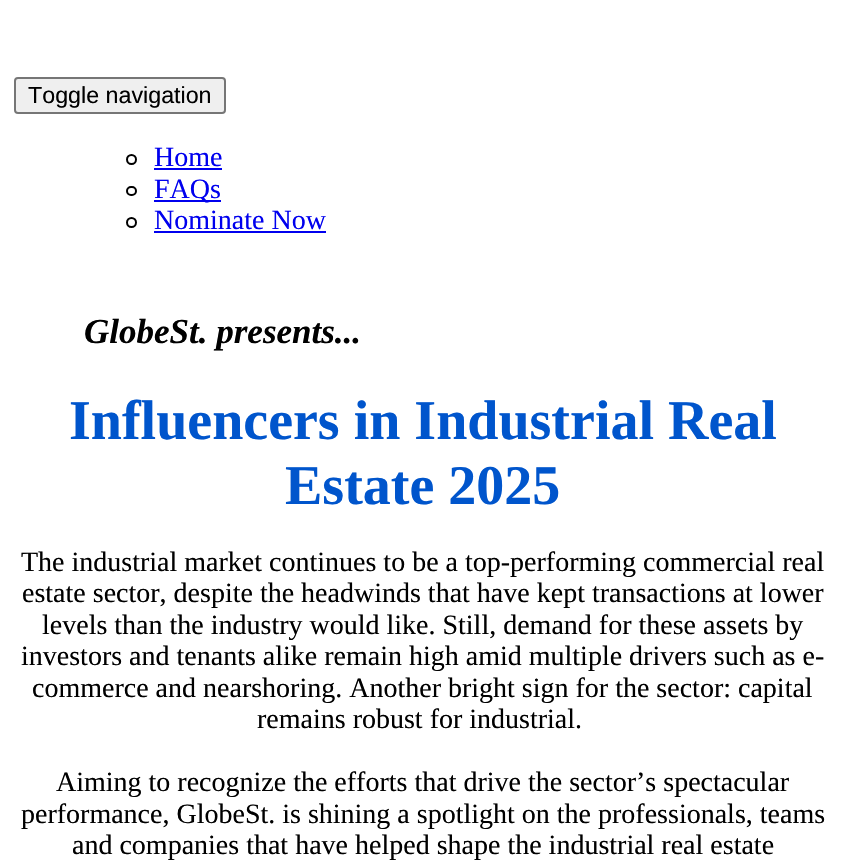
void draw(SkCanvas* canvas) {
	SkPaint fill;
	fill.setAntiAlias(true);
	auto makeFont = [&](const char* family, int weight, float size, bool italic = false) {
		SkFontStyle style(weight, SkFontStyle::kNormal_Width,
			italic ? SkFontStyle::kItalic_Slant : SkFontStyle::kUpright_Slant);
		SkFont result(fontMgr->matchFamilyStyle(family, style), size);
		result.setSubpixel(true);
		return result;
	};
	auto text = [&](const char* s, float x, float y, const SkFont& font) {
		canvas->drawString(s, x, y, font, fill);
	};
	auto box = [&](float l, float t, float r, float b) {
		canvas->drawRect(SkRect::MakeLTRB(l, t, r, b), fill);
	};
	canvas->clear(0xFFFFFFFF);
	fill.setColor(0xFFEFEFEF);
	canvas->drawRoundRect(SkRect::MakeLTRB(15, 78, 225, 113), 3, 3, fill);
	fill.setStyle(SkPaint::kStroke_Style);
	fill.setStrokeWidth(2);
	fill.setColor(0xFF767676);
	canvas->drawRoundRect(SkRect::MakeLTRB(15, 78, 225, 113), 3, 3, fill);
	fill.setColor(0xFF000000);
	canvas->drawCircle(131.5f, 159.5f, 4.5f, fill);
	fill.setStyle(SkPaint::kFill_Style);
	fill.setColor(0xFF0000EE);
	box(154, 168, 222, 170);
	fill.setStyle(SkPaint::kStroke_Style);
	fill.setColor(0xFF000000);
	canvas->drawRoundRect(SkRect::MakeLTRB(127, 187, 136, 195), 4, 4, fill);
	fill.setStyle(SkPaint::kFill_Style);
	fill.setColor(0xFF0000EE);
	box(154, 200, 221, 202);
	fill.setStyle(SkPaint::kStroke_Style);
	fill.setColor(0xFF000000);
	canvas->drawCircle(131.5f, 222.5f, 4.5f, fill);
	fill.setStyle(SkPaint::kFill_Style);
	fill.setColor(0xFF0000EE);
	box(154, 231, 326, 233);
	auto font1 = makeFont("Liberation Sans", 400, 23.25f);
	fill.setColor(0xFF000000);
	text("Toggle navigation", 28, 103, font1);
	auto font2 = makeFont("Liberation Serif", 400, 28);
	fill.setColor(0xFF0000EE);
	text("Home", 154, 166, font2);
	text("FAQs", 154, 198, font2);
	text("Nominate Now", 154, 229, font2);
	auto font3 = makeFont("Liberation Serif", 700, 35, true);
	fill.setColor(0xFF000000);
	text("GlobeSt. presents...", 84, 343, font3);
	auto font4 = makeFont("Liberation Serif", 700, 56);
	fill.setColor(0xFF0055CC);
	text("Influencers in Industrial Real", 69, 439, font4);
	text("Estate 2025", 285, 504, font4);
	fill.setColor(0xFF000000);
	text("The industrial market continues to be a top-performing commercial real", 21, 571, font2);
	text("estate sector, despite the headwinds that have kept transactions at lower", 22, 602, font2);
	text("levels than the industry would like. Still, demand for these assets by", 42, 634, font2);
	text("investors and tenants alike remain high amid multiple drivers such as e-", 21, 665, font2);
	text("commerce and nearshoring. Another bright sign for the sector: capital", 32, 697, font2);
	text("remains robust for industrial.", 257, 728, font2);
	text("Aiming to recognize the efforts that drive the sector’s spectacular", 56, 791, font2);
	text("performance, GlobeSt. is shining a spotlight on the professionals, teams", 21, 823, font2);
	text("and companies that have helped shape the industrial real estate", 72, 854, font2);
}
